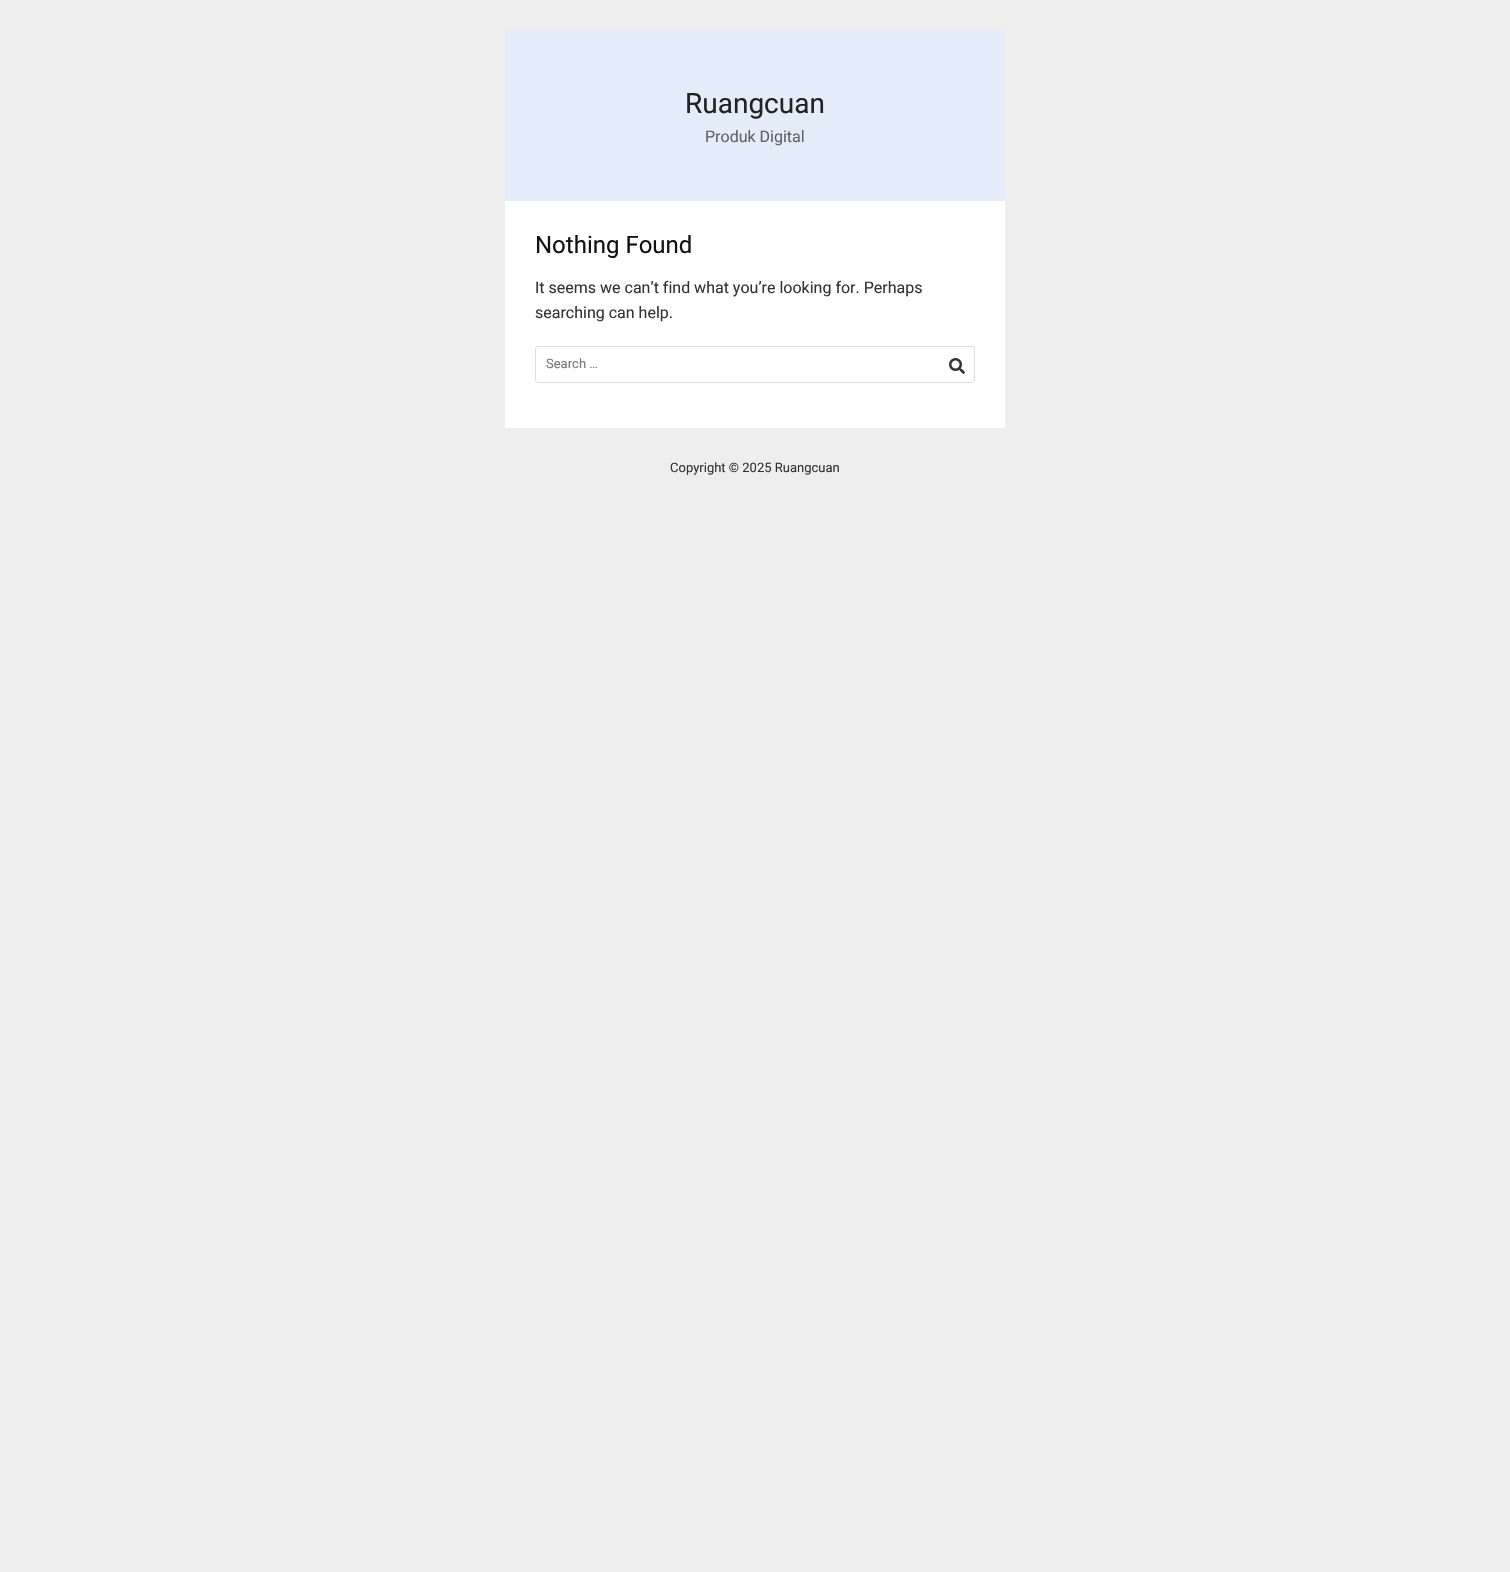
void draw(SkCanvas* canvas) {
	SkPaint fill;
	fill.setAntiAlias(true);
	auto makeFont = [&](const char* family, int weight, float size, bool italic = false) {
		SkFontStyle style(weight, SkFontStyle::kNormal_Width,
			italic ? SkFontStyle::kItalic_Slant : SkFontStyle::kUpright_Slant);
		SkFont result(fontMgr->matchFamilyStyle(family, style), size);
		result.setSubpixel(true);
		return result;
	};
	auto text = [&](const char* s, float x, float y, const SkFont& font) {
		canvas->drawString(s, x, y, font, fill);
	};
	auto box = [&](float l, float t, float r, float b) {
		canvas->drawRect(SkRect::MakeLTRB(l, t, r, b), fill);
	};
	auto picture = [&](const char* path, float l, float t, float r, float b) {
		auto image = SkImages::DeferredFromEncodedData(SkData::MakeFromFileName(path));
		canvas->drawImageRect(image, SkRect::MakeLTRB(l, t, r, b), SkSamplingOptions());
	};
	canvas->clear(0xFFEEEEEE);
	fill.setColor(0xFFE3ECF8);
	box(505, 30, 1005, 201);
	fill.setColor(0xFFFFFFFF);
	box(505, 201, 1005, 428);
	fill.setStyle(SkPaint::kStroke_Style);
	fill.setStrokeWidth(1);
	fill.setColor(0xFFDDDDDD);
	canvas->drawRoundRect(SkRect::MakeLTRB(535.5f, 346.5f, 974.5f, 382.5f), 2.5f, 2.5f, fill);
	picture("image0.png", 949, 358, 965, 374);
	auto font1 = makeFont("Roboto", 400, 28);
	fill.setStyle(SkPaint::kFill_Style);
	fill.setColor(0xFF222222);
	text("Ruangcuan", 685, 113, font1);
	auto font2 = makeFont("Roboto", 400, 16);
	fill.setColor(0xFF5F6164);
	text("Produk Digital", 705, 142, font2);
	auto font3 = makeFont("Roboto", 400, 24);
	fill.setColor(0xFF111111);
	text("Nothing Found", 535, 253, font3);
	fill.setColor(0xFF333333);
	text("It seems we can’t find what you’re looking for. Perhaps", 535, 293, font2);
	text("searching can help.", 535, 318, font2);
	auto font4 = makeFont("Roboto", 400, 13);
	fill.setColor(0xFF757575);
	text("Search …", 546, 368, font4);
	fill.setColor(0xFF333333);
	text("Copyright © 2025 Ruangcuan", 670, 472, font4);
}
